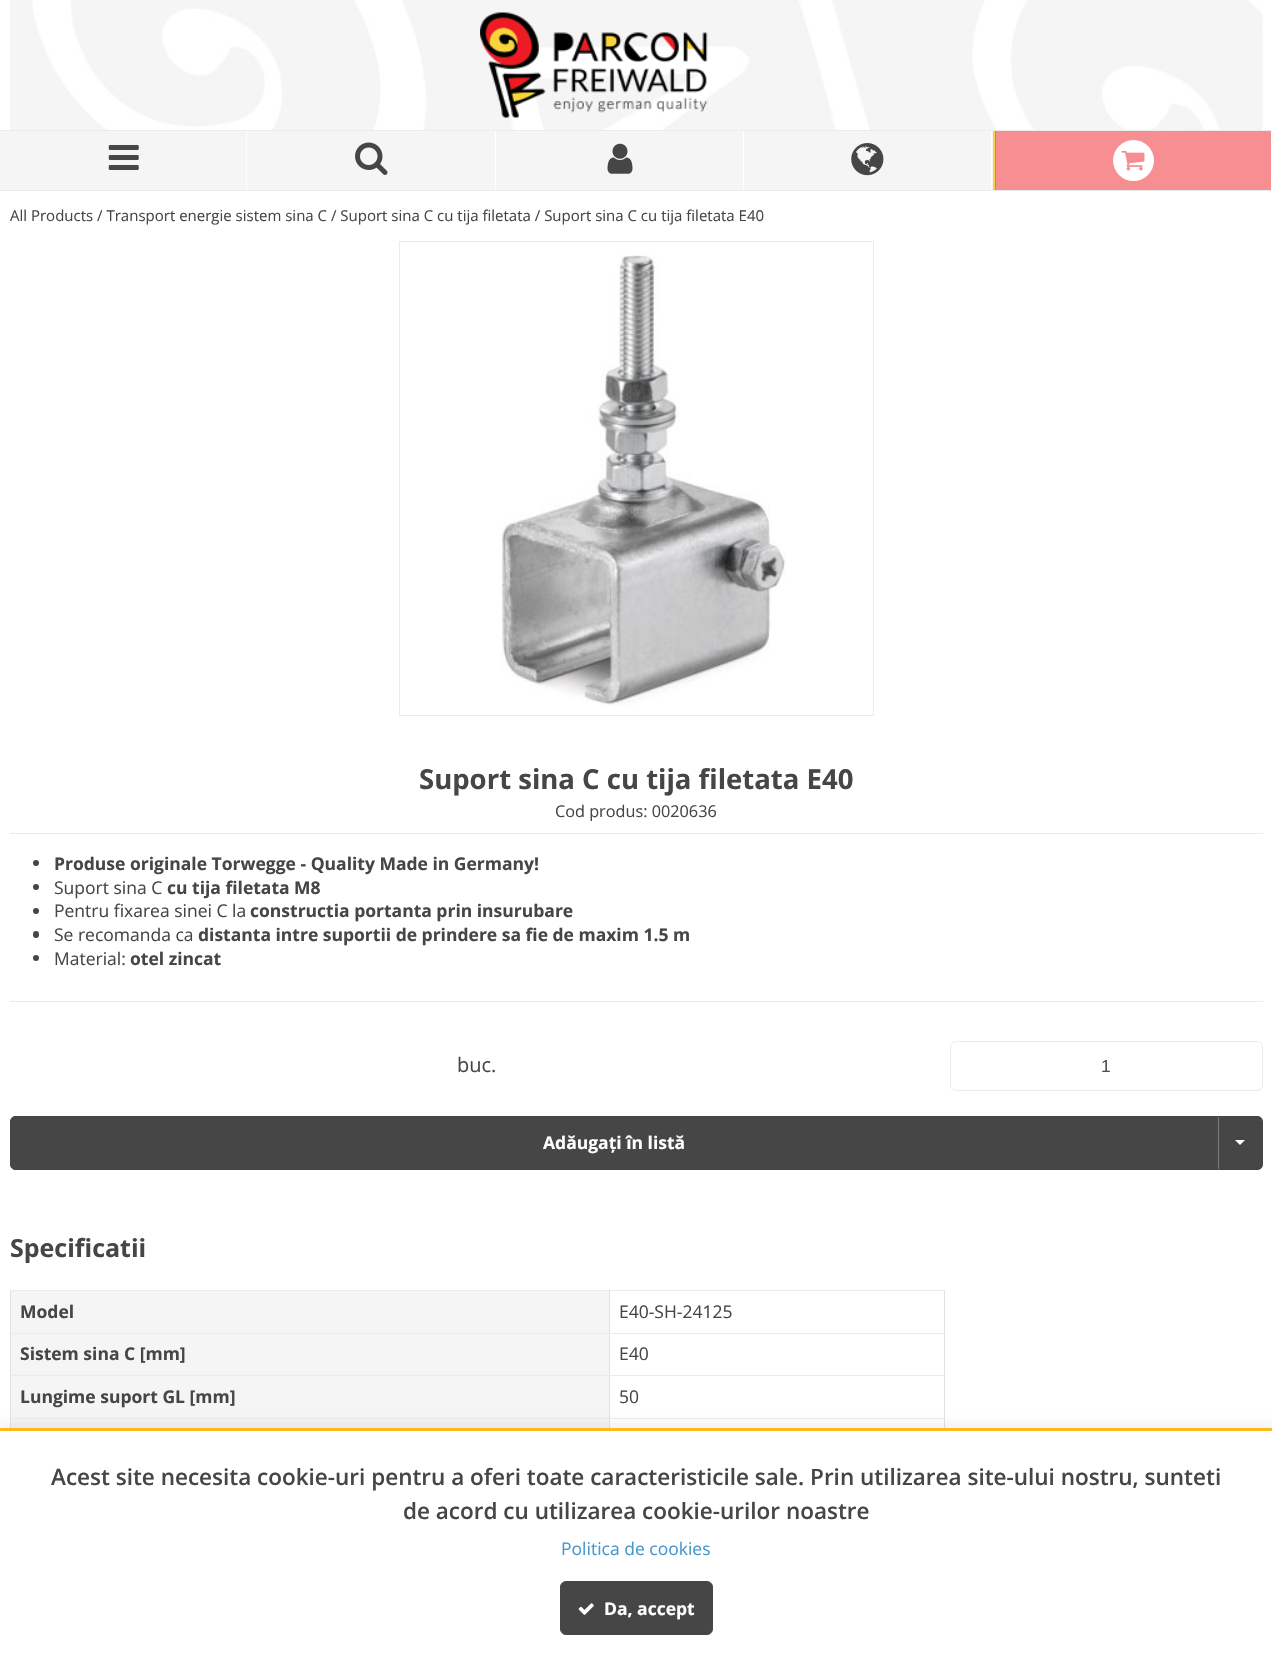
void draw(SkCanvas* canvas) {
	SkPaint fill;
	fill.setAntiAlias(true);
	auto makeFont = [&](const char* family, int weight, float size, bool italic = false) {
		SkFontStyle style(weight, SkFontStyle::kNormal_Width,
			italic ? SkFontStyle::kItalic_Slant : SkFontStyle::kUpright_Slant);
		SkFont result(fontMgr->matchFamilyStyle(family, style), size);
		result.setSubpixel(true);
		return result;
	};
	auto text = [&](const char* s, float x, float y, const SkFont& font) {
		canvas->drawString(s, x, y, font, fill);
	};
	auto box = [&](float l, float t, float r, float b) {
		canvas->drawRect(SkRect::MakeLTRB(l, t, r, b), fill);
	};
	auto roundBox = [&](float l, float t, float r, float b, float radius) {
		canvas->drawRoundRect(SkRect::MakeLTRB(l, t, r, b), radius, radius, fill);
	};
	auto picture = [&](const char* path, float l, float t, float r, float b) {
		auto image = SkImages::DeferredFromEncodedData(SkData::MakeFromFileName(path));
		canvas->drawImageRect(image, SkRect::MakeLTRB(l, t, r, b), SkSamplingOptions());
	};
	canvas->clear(0xFFFFFFFF);
	fill.setColor(0xFFF68E92);
	box(996, 131, 1271, 190);
	picture("image0.png", 10, 0, 1263, 130);
	picture("image1.png", 480, 12, 708, 118);
	fill.setColor(0xFFEBEBEB);
	box(0, 130, 1272, 131);
	box(0, 190, 1272, 191);
	fill.setColor(0xFFF5F5F5);
	box(0, 131, 495, 190);
	fill.setColor(0xFFFFFFFF);
	box(246, 131, 247, 190);
	picture("image2.png", 108, 145, 139, 170);
	fill.setColor(0xFFF5F5F5);
	box(496, 131, 743, 190);
	picture("image3.png", 607, 143, 633, 174);
	box(744, 131, 993, 190);
	fill.setColor(0xFFFFFFFF);
	box(991, 131, 992, 190);
	picture("image4.png", 851, 143, 884, 176);
	fill.setColor(0xFFFBD43C);
	box(993, 131, 995, 190);
	fill.setColor(0xFFF47830);
	box(995, 131, 996, 190);
	fill.setColor(0xFFFFFFFF);
	canvas->drawCircle(1133.5f, 160.5f, 20.5f, fill);
	picture("image5.png", 1121, 150, 1145, 171);
	picture("image6.png", 355, 142, 388, 175);
	fill.setStyle(SkPaint::kStroke_Style);
	fill.setStrokeWidth(1);
	fill.setColor(0xFFEBEBEB);
	canvas->drawRect(SkRect::MakeLTRB(399.5f, 241.5f, 873.5f, 715.5f), fill);
	picture("image7.png", 500, 254, 786, 707);
	fill.setStyle(SkPaint::kFill_Style);
	box(10, 833, 1263, 834);
	fill.setColor(0xFF464646);
	canvas->drawCircle(36, 863, 3, fill);
	canvas->drawCircle(36, 887, 3, fill);
	canvas->drawCircle(36, 911, 3, fill);
	roundBox(33, 931, 39, 938, 3);
	canvas->drawCircle(36, 958, 3, fill);
	fill.setColor(0xFFEBEBEB);
	box(10, 1001, 1263, 1002);
	fill.setStyle(SkPaint::kStroke_Style);
	canvas->drawRoundRect(SkRect::MakeLTRB(950.5f, 1041.5f, 1262.5f, 1090.5f), 5.5f, 5.5f, fill);
	fill.setStyle(SkPaint::kFill_Style);
	fill.setColor(0xFF464646);
	canvas->drawPath(SkPathBuilder().moveTo(16, 1116).lineTo(1219, 1116).lineTo(1219, 1170).lineTo(16, 1170).cubicTo(12.5f, 1170, 10, 1167.5f, 10, 1164).lineTo(10, 1122).cubicTo(10, 1118.5f, 12.5f, 1116, 16, 1116).close().detach(), fill);
	canvas->drawPath(SkPathBuilder().moveTo(16, 1118).lineTo(13, 1119).lineTo(12, 1118).lineTo(14, 1116).lineTo(1219, 1116).lineTo(1217, 1118).close().detach(), fill);
	fill.setColor(0xFF7E7E7E);
	canvas->drawPath(SkPathBuilder().moveTo(1219, 1116).lineTo(1217, 1118).lineTo(1218, 1118).lineTo(1218, 1169).lineTo(1219, 1170).close().detach(), fill);
	fill.setColor(0xFF464646);
	canvas->drawPath(SkPathBuilder().moveTo(1219, 1170).lineTo(1218, 1169).lineTo(16, 1169).cubicTo(14, 1169, 13, 1168, 12, 1168).cubicTo(13, 1169, 14, 1170, 16, 1170).close().detach(), fill);
	canvas->drawPath(SkPathBuilder().moveTo(10, 1122).lineTo(10, 1164).cubicTo(10, 1166, 11, 1167, 12, 1168).lineTo(11, 1165).lineTo(11, 1121).lineTo(13, 1119).lineTo(12, 1118).cubicTo(11, 1119, 10, 1121, 10, 1122).close().detach(), fill);
	canvas->drawPath(SkPathBuilder().moveTo(1218, 1116).lineTo(1257, 1116).cubicTo(1260.5f, 1116, 1263, 1118.5f, 1263, 1122).lineTo(1263, 1164).cubicTo(1263, 1167.5f, 1260.5f, 1170, 1257, 1170).lineTo(1218, 1170).close().detach(), fill);
	canvas->drawPath(SkPathBuilder().moveTo(1218, 1117).lineTo(1218, 1116).lineTo(1258, 1116).lineTo(1261, 1118).lineTo(1260, 1119).cubicTo(1259, 1118, 1257, 1118, 1256, 1118).lineTo(1219, 1118).close().detach(), fill);
	canvas->drawPath(SkPathBuilder().moveTo(1261, 1118).cubicTo(1262, 1119, 1262, 1121, 1262, 1122).lineTo(1262, 1164).cubicTo(1262, 1165, 1262, 1167, 1261, 1168).lineTo(1260, 1167).cubicTo(1262, 1165, 1261, 1159, 1261, 1157).lineTo(1261, 1122).lineTo(1260, 1119).close().detach(), fill);
	canvas->drawPath(SkPathBuilder().moveTo(1218, 1170).lineTo(1256, 1170).cubicTo(1258, 1170, 1260, 1169, 1261, 1168).lineTo(1260, 1167).cubicTo(1259, 1168, 1258, 1169, 1256, 1169).lineTo(1219, 1169).lineTo(1219, 1168).close().detach(), fill);
	fill.setColor(0xFF7E7E7E);
	canvas->drawPath(SkPathBuilder().moveTo(1219, 1118).lineTo(1219, 1168).lineTo(1218, 1170).lineTo(1218, 1117).close().detach(), fill);
	fill.setColor(0xFFFFFFFF);
	canvas->drawPath(SkPathBuilder().moveTo(1235, 1140).lineTo(1245, 1140).lineTo(1240, 1145).close().detach(), fill);
	fill.setColor(0xFFEBEBEB);
	box(10, 1290, 945, 1291);
	fill.setColor(0xFFDEE2E6);
	box(944, 1290, 945, 1428);
	fill.setColor(0xFFF5F5F5);
	box(11, 1291, 609, 1333);
	fill.setColor(0xFFDEE2E6);
	box(609, 1418, 610, 1428);
	fill.setColor(0xFFEBEBEB);
	box(609, 1418, 945, 1419);
	fill.setColor(0xFFDEE2E6);
	box(609, 1375, 610, 1419);
	fill.setColor(0xFFEBEBEB);
	box(609, 1375, 945, 1376);
	fill.setColor(0xFFDEE2E6);
	box(609, 1333, 610, 1376);
	fill.setColor(0xFFEBEBEB);
	box(609, 1333, 945, 1334);
	fill.setColor(0xFFDEE2E6);
	box(609, 1290, 610, 1334);
	box(10, 1418, 11, 1428);
	fill.setColor(0xFFEBEBEB);
	box(10, 1418, 610, 1419);
	fill.setColor(0xFFDEE2E6);
	box(10, 1375, 11, 1419);
	fill.setColor(0xFFEBEBEB);
	box(10, 1375, 610, 1376);
	fill.setColor(0xFFDEE2E6);
	box(10, 1333, 11, 1376);
	fill.setColor(0xFFEBEBEB);
	box(10, 1333, 610, 1334);
	fill.setColor(0xFFDEE2E6);
	box(10, 1290, 11, 1334);
	fill.setColor(0xFFF5F5F5);
	box(11, 1334, 609, 1375);
	box(11, 1376, 609, 1418);
	box(11, 1419, 609, 1428);
	fill.setColor(0x0D000000);
	fill.setMaskFilter(SkMaskFilter::MakeBlur(kNormal_SkBlurStyle, 4.5f));
	canvas->drawRect(SkRect::MakeLTRB(-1, 1423, 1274, 1663), fill);
	fill.setMaskFilter(nullptr);
	fill.setColor(0xFFFFFFFF);
	box(0, 1431, 1272, 1665);
	fill.setColor(0xFFFCB91D);
	box(0, 1428, 1272, 1431);
	fill.setColor(0xFF464646);
	canvas->drawRoundRect(SkRect::MakeLTRB(560.5f, 1581.5f, 712.5f, 1634.5f), 5.5f, 5.5f, fill);
	fill.setStyle(SkPaint::kStroke_Style);
	canvas->drawRoundRect(SkRect::MakeLTRB(560.5f, 1581.5f, 712.5f, 1634.5f), 5.5f, 5.5f, fill);
	picture("image8.png", 578, 1603, 594, 1615);
	auto font1 = makeFont("Open Sans", 400, 15);
	fill.setStyle(SkPaint::kFill_Style);
	text("All Products / Transport energie sistem sina C / Suport sina C cu tija filetata / Suport sina C cu tija filetata E40", 10, 221, font1);
	auto font2 = makeFont("Open Sans", 700, 27.5f);
	text("Suport sina C cu tija filetata E40", 419, 789, font2);
	auto font3 = makeFont("Open Sans", 400, 16.25f);
	text("Cod produs: 0020636", 555, 817, font3);
	auto font4 = makeFont("Open Sans", 700, 17.5f);
	text("Produse originale Torwegge - Quality Made in Germany!", 54, 870, font4);
	auto font5 = makeFont("Open Sans", 400, 17.5f);
	text("Suport sina C", 54, 894, font5);
	text("cu tija filetata M8", 167, 894, font4);
	text("Pentru fixarea sinei C la", 54, 917, font5);
	text("constructia portanta prin insurubare", 250, 917, font4);
	text("Se recomanda ca", 54, 941, font5);
	text("distanta intre suportii de prindere sa fie de maxim 1.5 m", 198, 941, font4);
	text("Material:", 54, 965, font5);
	text("otel zincat", 130, 965, font4);
	auto font6 = makeFont("Open Sans", 400, 20);
	text("buc.", 457, 1072, font6);
	auto font7 = makeFont("Liberation Sans", 400, 17.5f);
	fill.setColor(0xFF495057);
	text("1", 1101, 1072, font7);
	fill.setColor(0xFFFFFFFF);
	text("Adăugați în listă", 543, 1149, font4);
	auto font8 = makeFont("Open Sans", 700, 25);
	fill.setColor(0xFF464646);
	text("Specificatii", 10, 1257, font8);
	text("Model", 20, 1318, font4);
	text("E40-SH-24125", 619, 1318, font5);
	text("Sistem sina C [mm]", 20, 1360, font4);
	text("E40", 619, 1360, font5);
	text("Lungime suport GL [mm]", 20, 1403, font4);
	text("50", 619, 1403, font5);
	auto font9 = makeFont("Open Sans", 600, 22.5f);
	text("Acest site necesita cookie-uri pentru a oferi toate caracteristicile sale. Prin utilizarea site-ului nostru, sunteti", 51, 1485, font9);
	text("de acord cu utilizarea cookie-urilor noastre", 403, 1519, font9);
	fill.setColor(0xFF4597CA);
	text("Politica de cookies", 561, 1555, font5);
	fill.setColor(0xFFFFFFFF);
	text("Da, accept", 604, 1615, font4);
}
